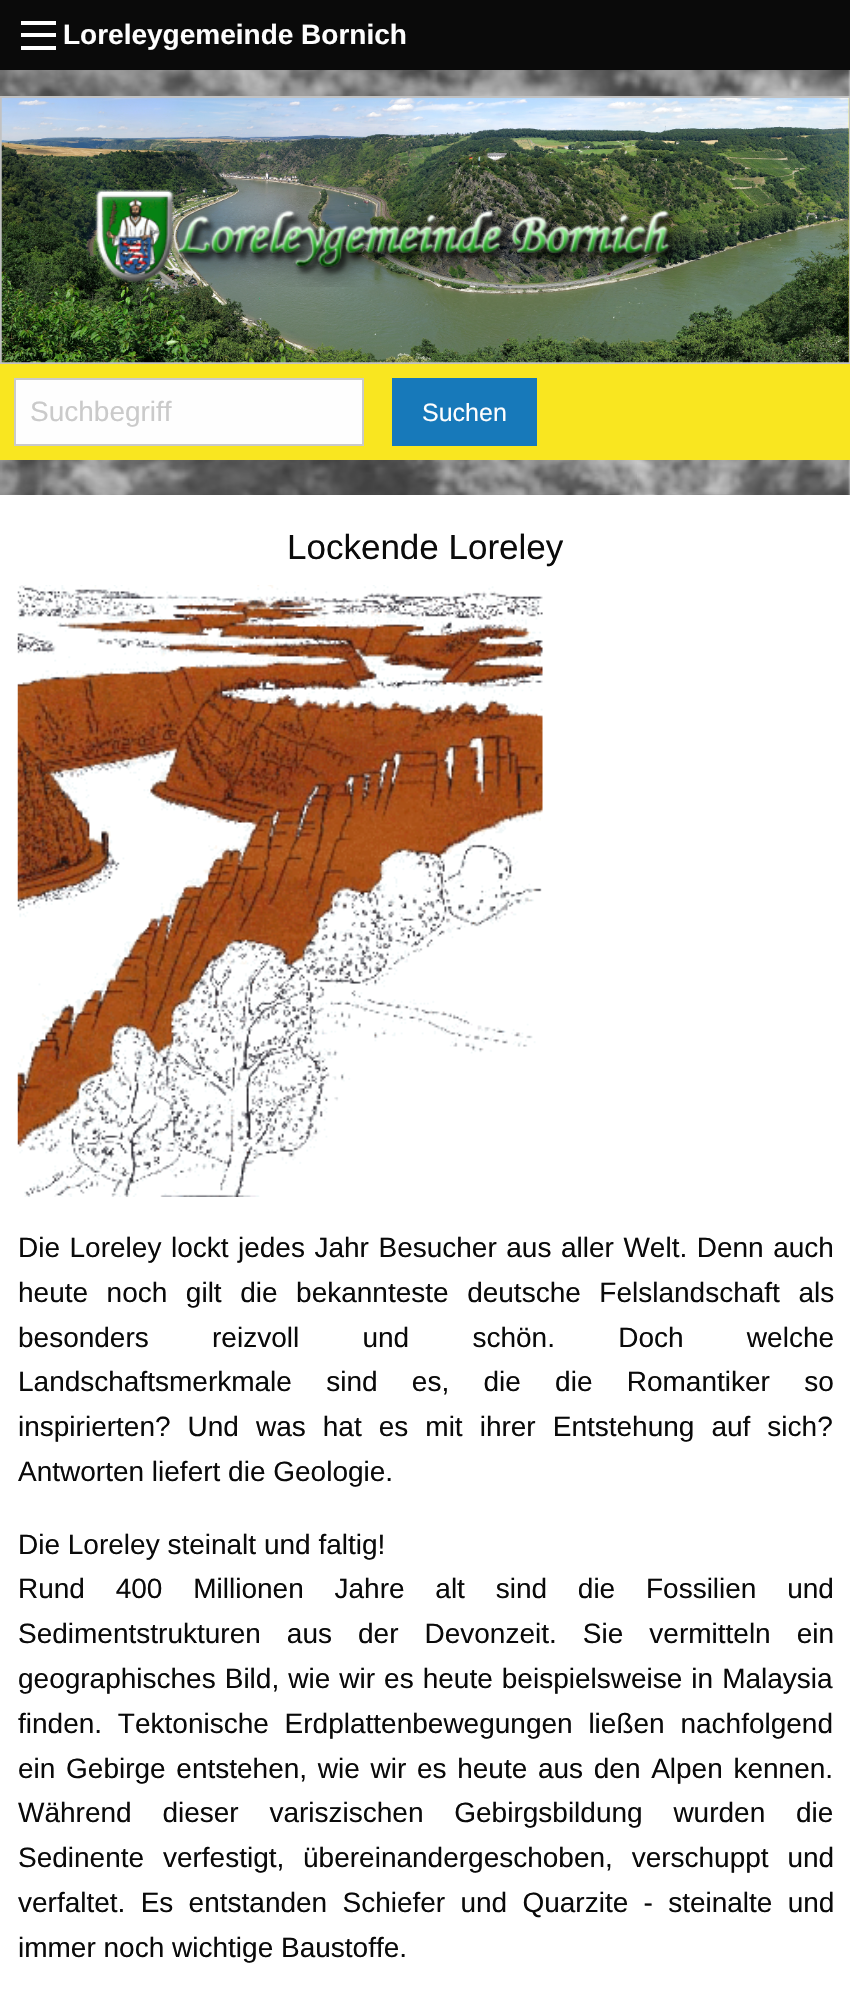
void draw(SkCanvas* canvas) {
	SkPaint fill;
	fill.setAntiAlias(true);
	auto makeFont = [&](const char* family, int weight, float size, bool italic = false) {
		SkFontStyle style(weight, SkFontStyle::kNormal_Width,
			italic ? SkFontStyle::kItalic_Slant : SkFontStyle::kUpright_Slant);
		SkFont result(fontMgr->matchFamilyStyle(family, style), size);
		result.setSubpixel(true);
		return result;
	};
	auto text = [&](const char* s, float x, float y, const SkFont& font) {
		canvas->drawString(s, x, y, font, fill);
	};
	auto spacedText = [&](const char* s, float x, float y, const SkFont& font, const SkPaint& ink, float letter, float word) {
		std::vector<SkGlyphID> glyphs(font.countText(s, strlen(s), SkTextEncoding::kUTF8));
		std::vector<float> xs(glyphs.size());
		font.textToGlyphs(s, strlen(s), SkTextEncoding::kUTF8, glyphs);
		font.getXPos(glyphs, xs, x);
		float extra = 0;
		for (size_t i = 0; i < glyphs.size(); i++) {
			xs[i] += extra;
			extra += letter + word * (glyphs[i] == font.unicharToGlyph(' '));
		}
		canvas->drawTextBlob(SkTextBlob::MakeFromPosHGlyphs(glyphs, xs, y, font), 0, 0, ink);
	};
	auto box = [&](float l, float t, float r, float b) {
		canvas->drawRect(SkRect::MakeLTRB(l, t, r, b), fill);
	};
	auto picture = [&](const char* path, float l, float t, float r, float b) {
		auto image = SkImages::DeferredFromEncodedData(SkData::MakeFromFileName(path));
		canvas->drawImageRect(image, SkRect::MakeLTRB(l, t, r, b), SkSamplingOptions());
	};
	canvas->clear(0xFFFFFFFF);
	picture("image0.png", 0, 70, 850, 495);
	fill.setColor(0xFF0A0A0A);
	box(0, 0, 850, 70);
	fill.setColor(0xFFFEFEFE);
	box(21, 46, 56, 50);
	box(21, 33, 56, 37);
	box(21, 21, 56, 25);
	fill.setColor(0xFFF9E620);
	box(0, 98, 850, 460);
	fill.setStyle(SkPaint::kStroke_Style);
	fill.setStrokeWidth(2);
	fill.setColor(0xFFC2C2C2);
	canvas->drawRect(SkRect::MakeLTRB(1, 97, 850, 363), fill);
	picture("image1.png", 1, 98, 849, 363);
	picture("image2.png", 95, 189, 690, 287);
	fill.setStyle(SkPaint::kFill_Style);
	fill.setColor(0xFFFEFEFE);
	canvas->drawRect(SkRect::MakeLTRB(15, 379, 363, 445), fill);
	fill.setStyle(SkPaint::kStroke_Style);
	fill.setColor(0xFFCACACA);
	canvas->drawRect(SkRect::MakeLTRB(15, 379, 363, 445), fill);
	fill.setStyle(SkPaint::kFill_Style);
	fill.setColor(0xFF1779BA);
	box(392, 378, 537, 446);
	picture("image3.png", 17, 585, 543, 1197);
	auto font1 = makeFont("Liberation Sans", 700, 28);
	fill.setColor(0xFFFEFEFE);
	text("Loreleygemeinde Bornich", 63, 44, font1);
	auto font2 = makeFont("Liberation Sans", 400, 28);
	fill.setColor(0xFFCACACA);
	text("Suchbegriff", 30, 421, font2);
	auto font3 = makeFont("Liberation Sans", 400, 25);
	fill.setColor(0xFFFEFEFE);
	text("Suchen", 422, 421, font3);
	auto font4 = makeFont("Liberation Sans", 400, 35);
	fill.setColor(0xFF0A0A0A);
	text("Lockende Loreley", 287, 559, font4);
	spacedText("Die Loreley lockt jedes Jahr Besucher aus aller Welt. Denn auch", 18, 1257, font2, fill, 0, 1.75f);
	spacedText("heute noch gilt die bekannteste deutsche Felslandschaft als", 18, 1302, font2, fill, 0, 10.75f);
	spacedText("besonders reizvoll und schön. Doch welche", 18, 1347, font2, fill, 0, 55.5f);
	spacedText("Landschaftsmerkmale sind es, die die Romantiker so", 18, 1391, font2, fill, 0, 26.5f);
	spacedText("inspirierten? Und was hat es mit ihrer Entstehung auf sich?", 18, 1436, font2, fill, 0, 9.25f);
	text("Antworten liefert die Geologie.", 18, 1481, font2);
	text("Die Loreley steinalt und faltig!", 18, 1554, font2);
	spacedText("Rund 400 Millionen Jahre alt sind die Fossilien und", 18, 1598, font2, fill, 0, 23);
	spacedText("Sedimentstrukturen aus der Devonzeit. Sie vermitteln ein", 18, 1643, font2, fill, 0, 18.25f);
	spacedText("geographisches Bild, wie wir es heute beispielsweise in Malaysia", 18, 1688, font2, fill, 0, 1.25f);
	spacedText("finden. Tektonische Erdplattenbewegungen ließen nachfolgend", 18, 1733, font2, fill, 0, 8);
	spacedText("ein Gebirge entstehen, wie wir es heute aus den Alpen kennen.", 18, 1778, font2, fill, 0, 2.9f);
	spacedText("Während dieser variszischen Gebirgsbildung wurden die", 18, 1822, font2, fill, 0, 23);
	spacedText("Sedinente verfestigt, übereinandergeschoben, verschuppt und", 18, 1867, font2, fill, 0, 11);
	spacedText("verfaltet. Es entstanden Schiefer und Quarzite - steinalte und", 18, 1912, font2, fill, 0, 7.5f);
	text("immer noch wichtige Baustoffe.", 18, 1957, font2);
}
